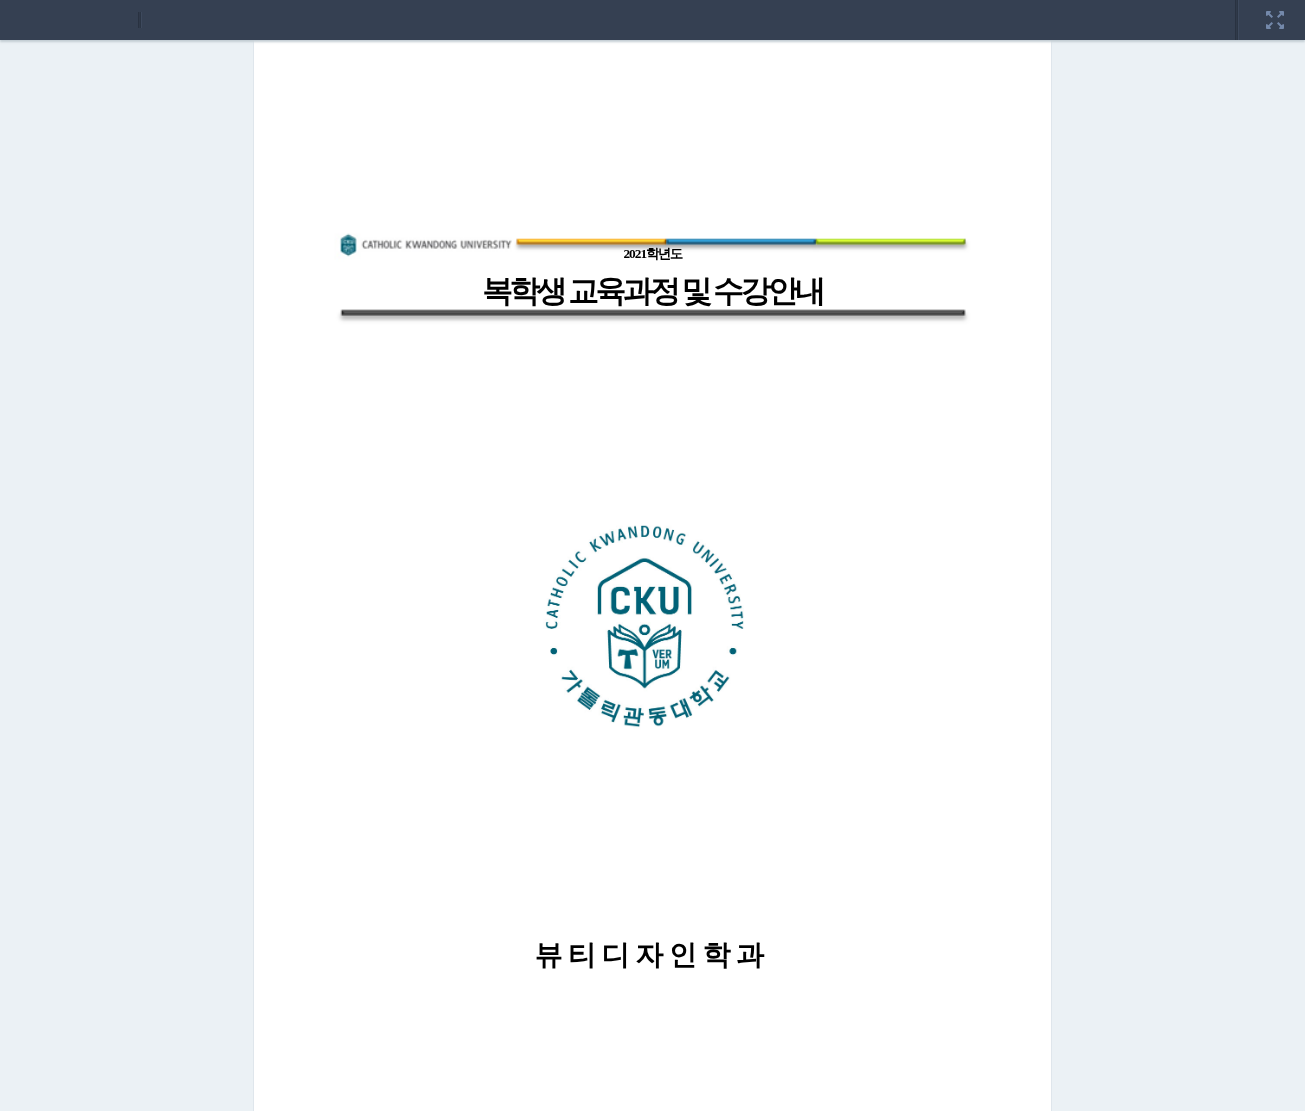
void draw(SkCanvas* canvas) {
	SkPaint fill;
	fill.setAntiAlias(true);
	auto box = [&](float l, float t, float r, float b) {
		canvas->drawRect(SkRect::MakeLTRB(l, t, r, b), fill);
	};
	auto picture = [&](const char* path, float l, float t, float r, float b) {
		auto image = SkImages::DeferredFromEncodedData(SkData::MakeFromFileName(path));
		canvas->drawImageRect(image, SkRect::MakeLTRB(l, t, r, b), SkSamplingOptions());
	};
	canvas->clear(0xFFEBF1F5);
	picture("image3.png", 253, 40, 1052, 1111);
	fill.setColor(0xFFC3CDD3);
	fill.setMaskFilter(SkMaskFilter::MakeBlur(kNormal_SkBlurStyle, 1));
	canvas->drawRect(SkRect::MakeLTRB(0, 2, 1305, 42), fill);
	fill.setMaskFilter(nullptr);
	fill.setColor(0xFF354052);
	box(0, 0, 1305, 40);
	picture("image0.png", 138, 12, 142, 28);
	picture("image1.png", 1235, 0, 1239, 40);
	picture("image2.png", 1266, 11, 1284, 29);
}
